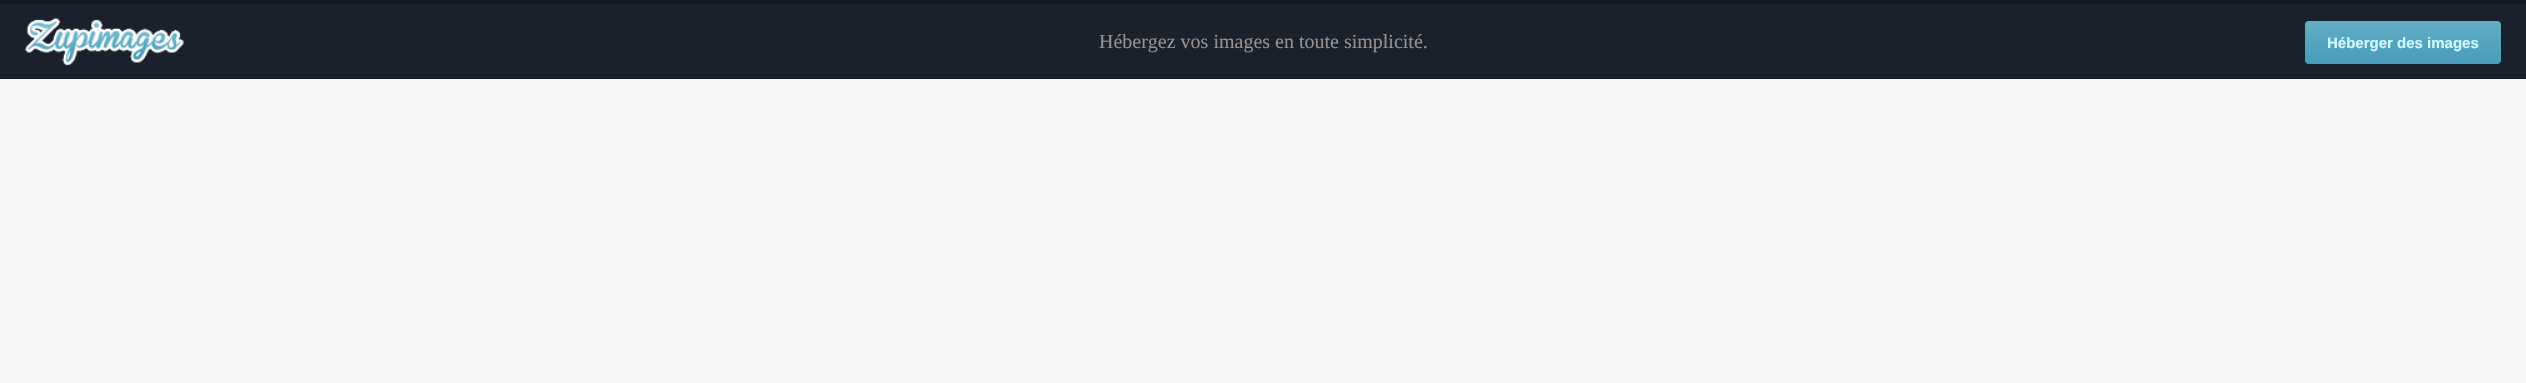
void draw(SkCanvas* canvas) {
	SkPaint fill;
	fill.setAntiAlias(true);
	auto makeFont = [&](const char* family, int weight, float size, bool italic = false) {
		SkFontStyle style(weight, SkFontStyle::kNormal_Width,
			italic ? SkFontStyle::kItalic_Slant : SkFontStyle::kUpright_Slant);
		SkFont result(fontMgr->matchFamilyStyle(family, style), size);
		result.setSubpixel(true);
		return result;
	};
	auto text = [&](const char* s, float x, float y, const SkFont& font) {
		canvas->drawString(s, x, y, font, fill);
	};
	auto box = [&](float l, float t, float r, float b) {
		canvas->drawRect(SkRect::MakeLTRB(l, t, r, b), fill);
	};
	auto roundBox = [&](float l, float t, float r, float b, float radius) {
		canvas->drawRoundRect(SkRect::MakeLTRB(l, t, r, b), radius, radius, fill);
	};
	auto picture = [&](const char* path, float l, float t, float r, float b) {
		auto image = SkImages::DeferredFromEncodedData(SkData::MakeFromFileName(path));
		canvas->drawImageRect(image, SkRect::MakeLTRB(l, t, r, b), SkSamplingOptions());
	};
	canvas->clear(0xFFF7F7F7);
	fill.setColor(0xFF1B212B);
	box(0, 4, 2526, 79);
	fill.setColor(0xFF141921);
	box(0, 0, 2526, 4);
	picture("image0.png", 25, 17, 184, 66);
	{
		const SkColor colors[] = {0xFF62AEC5, 0xFF479CB9};
		const float stops[] = {0, 1};
		const SkPoint ends[] = {{2403, 21}, {2403, 64}};
		fill.setShader(SkGradientShader::MakeLinear(ends, colors, stops, 2, SkTileMode::kClamp));
		fill.setAlpha(255);
	}
	roundBox(2305, 21, 2501, 64, 4);
	auto font1 = makeFont("Liberation Serif", 400, 20);
	fill.setShader(nullptr);
	fill.setColor(0xFF969191);
	text("Hébergez vos images en toute simplicité.", 1099, 48, font1);
	auto font2 = makeFont("Liberation Sans", 700, 15);
	fill.setColor(0xFFD3F7FF);
	text("Héberger des images", 2327, 48, font2);
}
